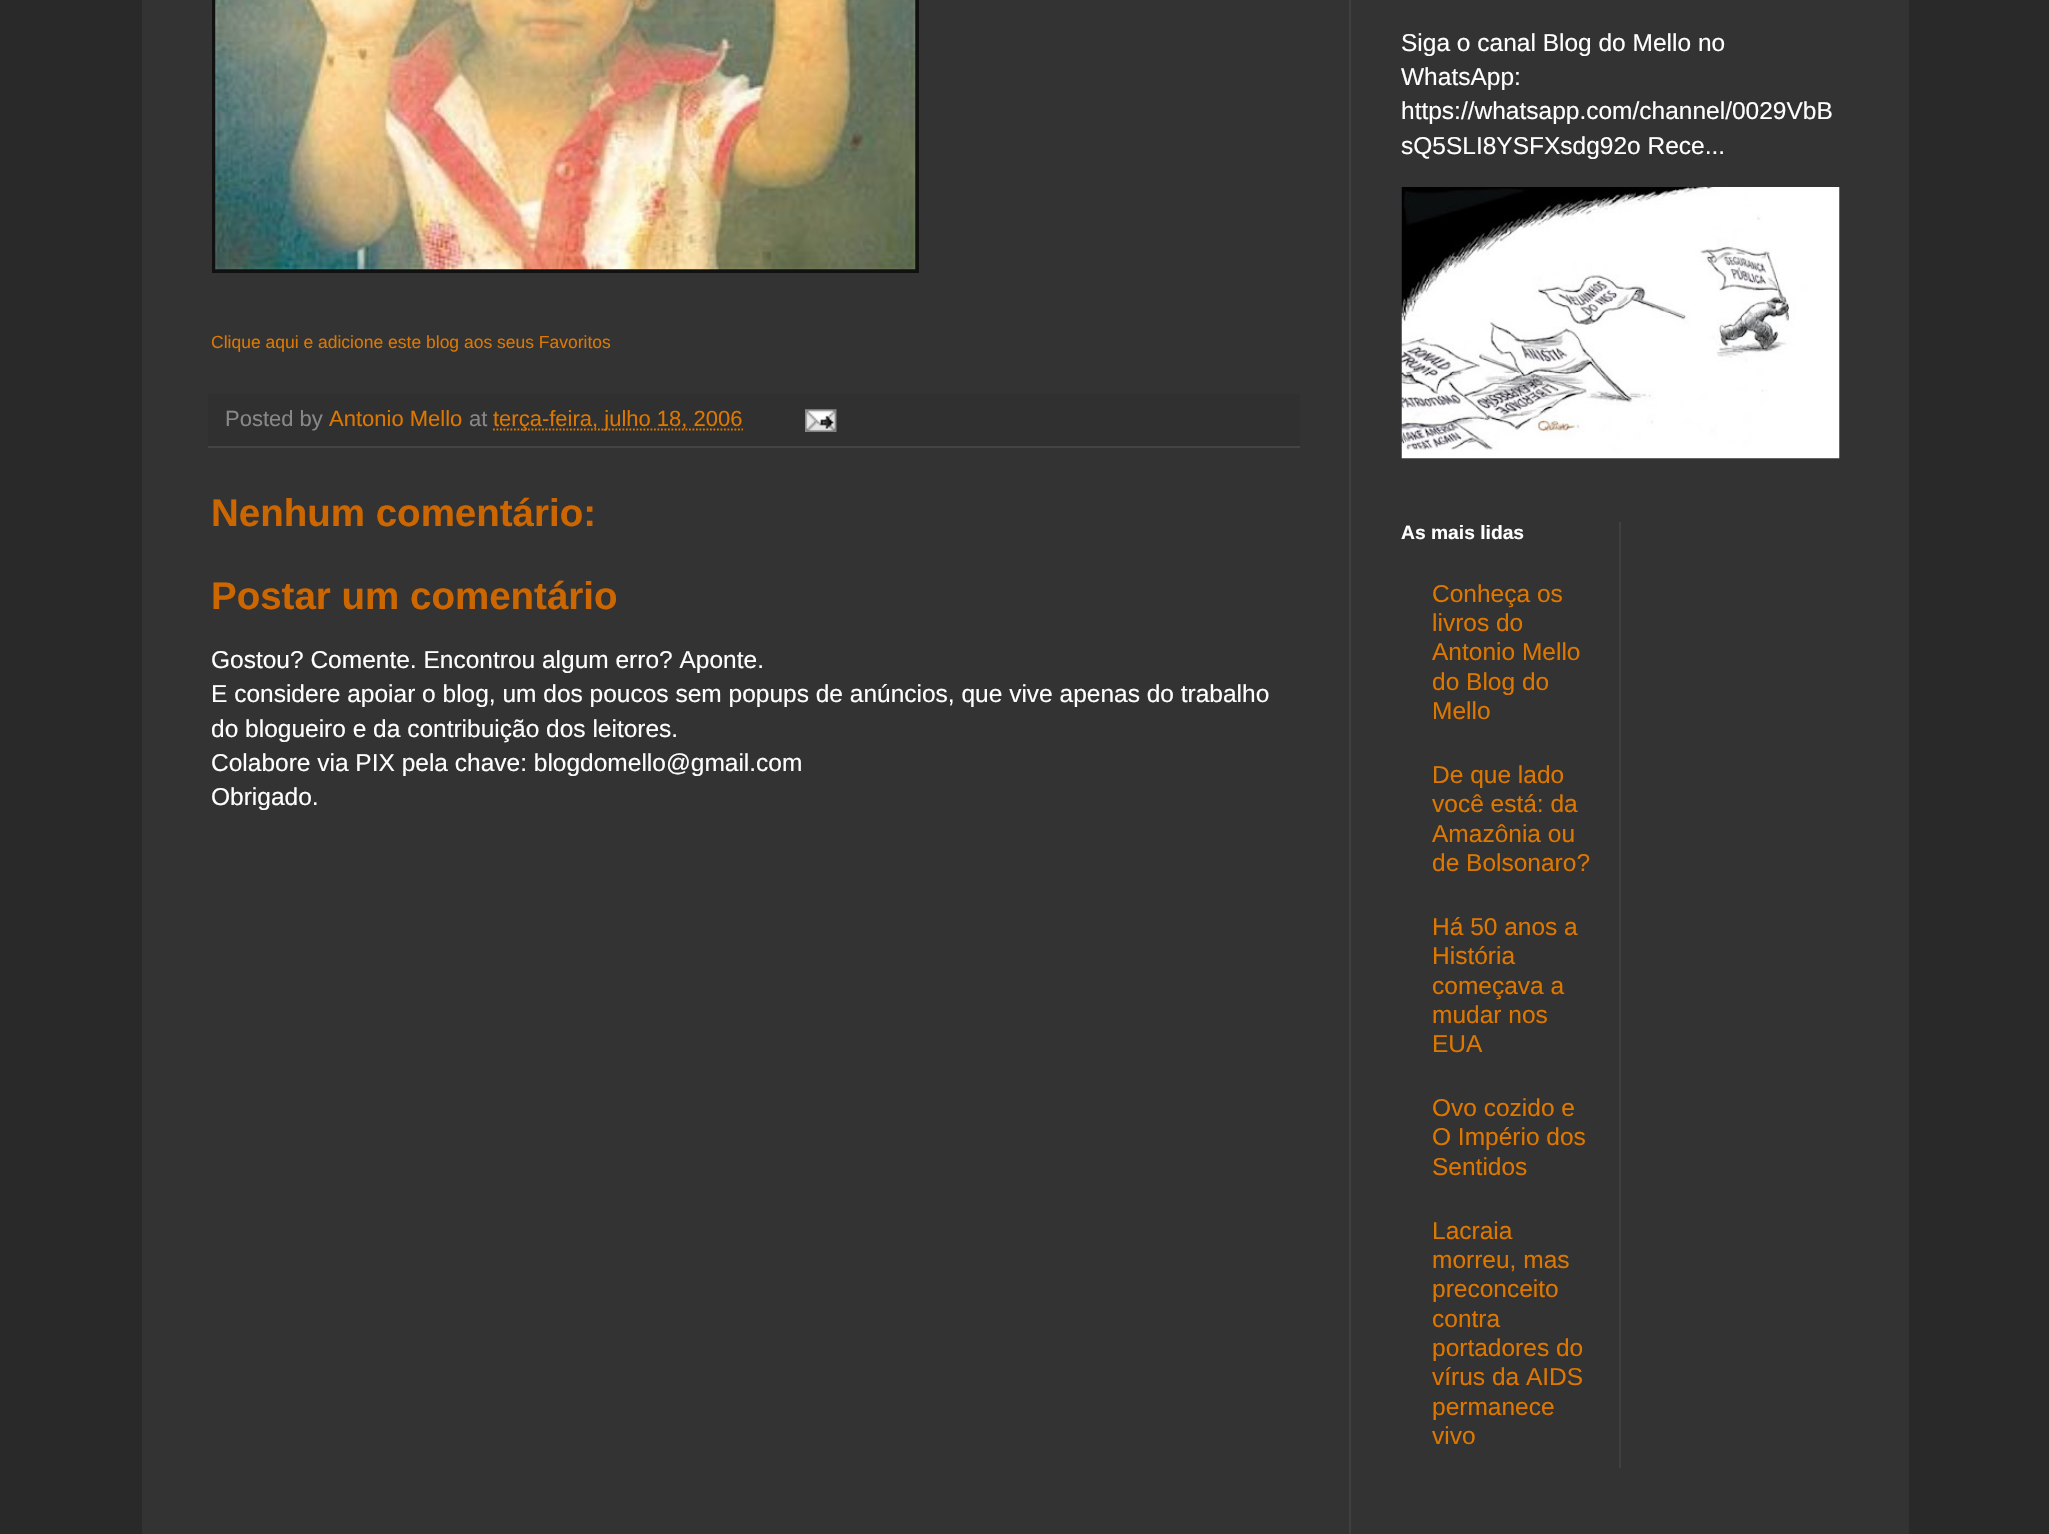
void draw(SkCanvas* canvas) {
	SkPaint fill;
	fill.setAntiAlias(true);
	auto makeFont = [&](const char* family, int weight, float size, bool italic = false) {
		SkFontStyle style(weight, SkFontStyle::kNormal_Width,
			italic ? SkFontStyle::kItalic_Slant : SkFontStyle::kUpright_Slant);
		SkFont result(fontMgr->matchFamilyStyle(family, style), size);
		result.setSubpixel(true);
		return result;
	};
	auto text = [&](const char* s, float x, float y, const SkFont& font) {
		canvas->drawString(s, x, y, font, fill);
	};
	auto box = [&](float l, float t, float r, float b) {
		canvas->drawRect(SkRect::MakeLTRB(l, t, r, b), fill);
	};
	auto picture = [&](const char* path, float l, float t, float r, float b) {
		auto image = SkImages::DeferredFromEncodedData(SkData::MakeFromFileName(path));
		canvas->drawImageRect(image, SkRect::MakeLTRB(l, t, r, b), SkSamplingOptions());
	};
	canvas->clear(0xFF292929);
	fill.setColor(0xFF333333);
	box(142, 0, 1909, 1534);
	fill.setColor(0xFF404040);
	box(1349, 0, 1351, 1534);
	fill.setColor(0xFF111111);
	box(212, 0, 919, 273);
	picture("image0.png", 215, 0, 916, 270);
	fill.setColor(0xFF303030);
	box(208, 394, 1300, 446);
	fill.setColor(0xFF444444);
	box(208, 446, 1300, 448);
	fill.setStyle(SkPaint::kStroke_Style);
	fill.setStrokeWidth(1.8f);
	fill.setColor(0xFFDD7700);
	fill.setPathEffect(SkDashPathEffect::Make({{1.75f, 1.75f}}, 0));
	canvas->drawPath(SkPathBuilder().moveTo(493, 429.5f).lineTo(743, 429.5f).detach(), fill);
	fill.setPathEffect(nullptr);
	picture("image1.png", 805, 409, 837, 432);
	picture("image2.png", 1401, 187, 1840, 459);
	fill.setStyle(SkPaint::kFill_Style);
	fill.setColor(0xFF404040);
	box(1619, 522, 1621, 1468);
	auto font1 = makeFont("Liberation Sans", 400, 17.5f);
	fill.setColor(0xFFDD7700);
	text("Clique aqui e adicione este blog aos seus Favoritos", 211, 348, font1);
	auto font2 = makeFont("Liberation Sans", 400, 22);
	fill.setColor(0xFF888888);
	text("Posted by", 225, 426, font2);
	fill.setColor(0xFFDD7700);
	text("Antonio Mello", 329, 426, font2);
	fill.setColor(0xFF888888);
	text("at", 469, 426, font2);
	fill.setColor(0xFFDD7700);
	text("terça-feira, julho 18, 2006", 493, 426, font2);
	auto font3 = makeFont("Liberation Sans", 700, 38.5f);
	fill.setColor(0xFFCC6600);
	text("Nenhum comentário:", 211, 526, font3);
	text("Postar um comentário", 211, 609, font3);
	auto font4 = makeFont("Liberation Sans", 400, 24.5f);
	fill.setColor(0xFFFFFFFF);
	text("Gostou? Comente. Encontrou algum erro? Aponte.", 211, 668, font4);
	text("E considere apoiar o blog, um dos poucos sem popups de anúncios, que vive apenas do trabalho", 211, 702, font4);
	text("do blogueiro e da contribuição dos leitores.", 211, 737, font4);
	text("Colabore via PIX pela chave: blogdomello@gmail.com", 211, 771, font4);
	text("Obrigado.", 211, 805, font4);
	text("Siga o canal Blog do Mello no", 1401, 51, font4);
	text("WhatsApp:", 1401, 85, font4);
	text("https://whatsapp.com/channel/0029VbB", 1401, 119, font4);
	text("sQ5SLI8YSFXsdg92o Rece...", 1401, 154, font4);
	auto font5 = makeFont("Liberation Sans", 700, 19.25f);
	text("As mais lidas", 1401, 539, font5);
	fill.setColor(0xFFDD7700);
	text("Conheça os", 1432, 602, font4);
	text("livros do", 1432, 631, font4);
	text("Antonio Mello", 1432, 660, font4);
	text("do Blog do", 1432, 690, font4);
	text("Mello", 1432, 719, font4);
	text("De que lado", 1432, 783, font4);
	text("você está: da", 1432, 812, font4);
	text("Amazônia ou", 1432, 842, font4);
	text("de Bolsonaro?", 1432, 871, font4);
	text("Há 50 anos a", 1432, 935, font4);
	text("História", 1432, 964, font4);
	text("começava a", 1432, 994, font4);
	text("mudar nos", 1432, 1023, font4);
	text("EUA", 1432, 1052, font4);
	text("Ovo cozido e", 1432, 1116, font4);
	text("O Império dos", 1432, 1145, font4);
	text("Sentidos", 1432, 1175, font4);
	text("Lacraia", 1432, 1239, font4);
	text("morreu, mas", 1432, 1268, font4);
	text("preconceito", 1432, 1297, font4);
	text("contra", 1432, 1327, font4);
	text("portadores do", 1432, 1356, font4);
	text("vírus da AIDS", 1432, 1385, font4);
	text("permanece", 1432, 1415, font4);
	text("vivo", 1432, 1444, font4);
}
